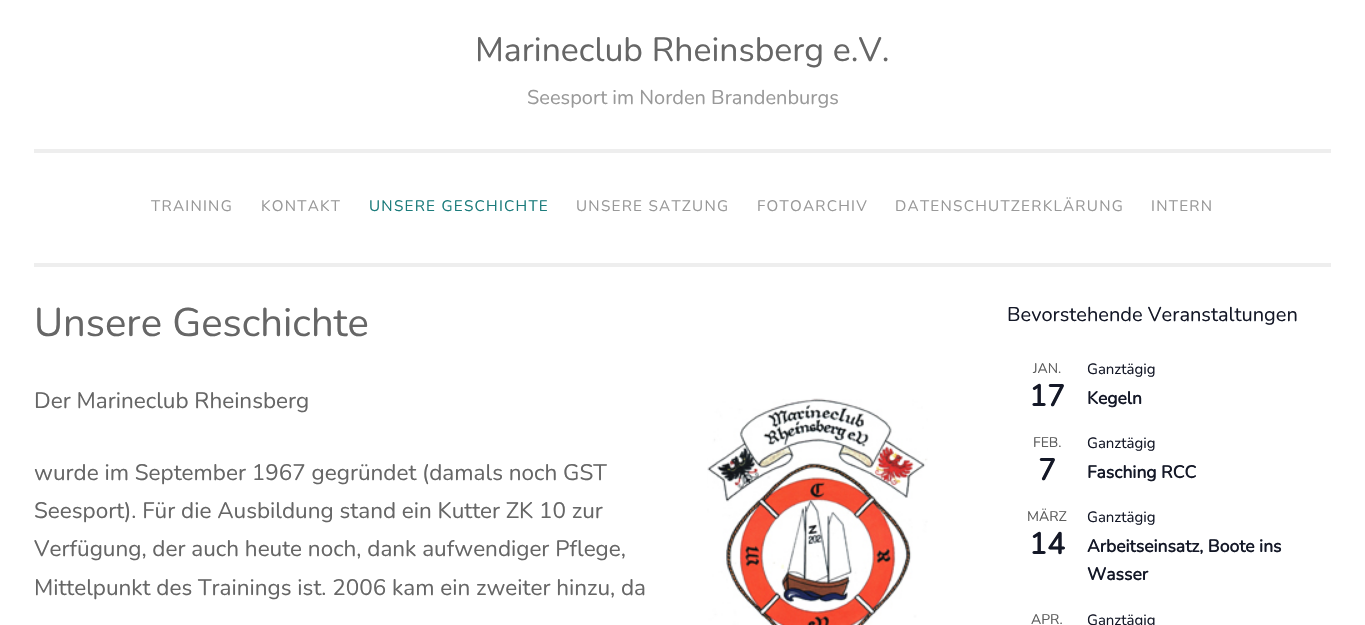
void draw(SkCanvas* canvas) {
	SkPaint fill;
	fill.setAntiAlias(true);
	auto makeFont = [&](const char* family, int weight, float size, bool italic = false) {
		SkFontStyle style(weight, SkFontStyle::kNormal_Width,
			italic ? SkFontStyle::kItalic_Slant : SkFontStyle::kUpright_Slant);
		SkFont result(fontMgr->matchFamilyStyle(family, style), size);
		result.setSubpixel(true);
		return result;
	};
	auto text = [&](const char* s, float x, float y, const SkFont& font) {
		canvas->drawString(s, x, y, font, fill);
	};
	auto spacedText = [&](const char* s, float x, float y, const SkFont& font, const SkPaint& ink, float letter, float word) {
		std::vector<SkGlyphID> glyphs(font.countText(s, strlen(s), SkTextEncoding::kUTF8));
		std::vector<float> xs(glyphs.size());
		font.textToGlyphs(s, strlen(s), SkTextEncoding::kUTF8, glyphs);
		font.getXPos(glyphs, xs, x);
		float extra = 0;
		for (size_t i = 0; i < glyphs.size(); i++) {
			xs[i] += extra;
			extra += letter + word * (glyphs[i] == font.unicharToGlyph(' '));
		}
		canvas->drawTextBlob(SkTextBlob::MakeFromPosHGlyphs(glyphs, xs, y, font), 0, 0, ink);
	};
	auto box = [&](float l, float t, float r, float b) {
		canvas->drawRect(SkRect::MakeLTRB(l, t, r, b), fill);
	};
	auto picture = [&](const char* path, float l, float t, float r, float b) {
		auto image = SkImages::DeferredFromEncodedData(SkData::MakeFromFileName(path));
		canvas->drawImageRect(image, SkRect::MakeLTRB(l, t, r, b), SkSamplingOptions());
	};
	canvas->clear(0xFFFFFFFF);
	fill.setColor(0xFFEEEEEE);
	box(34, 263, 1331, 267);
	box(34, 149, 1331, 153);
	picture("image0.png", 707, 398, 928, 625);
	auto font1 = makeFont("Nunito", 200, 33.75f);
	fill.setColor(0xFF666666);
	text("Marineclub Rheinsberg e.V.", 475, 61, font1);
	auto font2 = makeFont("Nunito", 200, 20);
	fill.setColor(0xFF999999);
	text("Seesport im Norden Brandenburgs", 527, 104, font2);
	auto font3 = makeFont("Nunito", 200, 15.25f);
	spacedText("TRAINING", 151, 211, font3, fill, 1.25f, 0);
	spacedText("KONTAKT", 261, 211, font3, fill, 1.25f, 0);
	fill.setColor(0xFF1C7C7C);
	spacedText("UNSERE GESCHICHTE", 369, 211, font3, fill, 1.25f, 0);
	fill.setColor(0xFF999999);
	spacedText("UNSERE SATZUNG", 576, 211, font3, fill, 1.25f, 0);
	spacedText("FOTOARCHIV", 757, 211, font3, fill, 1.25f, 0);
	spacedText("DATENSCHUTZERKLÄRUNG", 895, 211, font3, fill, 1.25f, 0);
	spacedText("INTERN", 1151, 211, font3, fill, 1.25f, 0);
	auto font4 = makeFont("Nunito", 200, 40);
	fill.setColor(0xFF666666);
	text("Unsere Geschichte", 34, 336, font4);
	auto font5 = makeFont("Nunito", 200, 22.5f);
	text("Der Marineclub Rheinsberg", 34, 408, font5);
	text("wurde im September 1967 gegründet (damals noch GST", 34, 480, font5);
	text("Seesport). Für die Ausbildung stand ein Kutter ZK 10 zur", 34, 518, font5);
	text("Verfügung, der auch heute noch, dank aufwendiger Pflege,", 34, 556, font5);
	text("Mittelpunkt des Trainings ist. 2006 kam ein zweiter hinzu, da", 34, 595, font5);
	fill.setColor(0xFF141827);
	text("Bevorstehende Veranstaltungen", 1007, 321, font2);
	auto font6 = makeFont("Nunito", 200, 14);
	fill.setColor(0xFF5D5D5D);
	text("JAN.", 1033, 373, font6);
	auto font7 = makeFont("Nunito", 700, 30);
	fill.setColor(0xFF141827);
	text("17", 1029, 406, font7);
	auto font8 = makeFont("Nunito", 200, 15);
	text("Ganztägig", 1087, 374, font8);
	auto font9 = makeFont("Nunito", 700, 17.5f);
	text("Kegeln", 1087, 404, font9);
	fill.setColor(0xFF5D5D5D);
	text("FEB.", 1033, 447, font6);
	fill.setColor(0xFF141827);
	text("7", 1038, 480, font7);
	text("Ganztägig", 1087, 448, font8);
	text("Fasching RCC", 1087, 478, font9);
	fill.setColor(0xFF5D5D5D);
	text("MÄRZ", 1027, 521, font6);
	fill.setColor(0xFF141827);
	text("14", 1029, 554, font7);
	text("Ganztägig", 1087, 522, font8);
	text("Arbeitseinsatz, Boote ins", 1087, 552, font9);
	text("Wasser", 1087, 580, font9);
	fill.setColor(0xFF5D5D5D);
	text("APR.", 1031, 624, font6);
	fill.setColor(0xFF141827);
	text("Ganztägig", 1087, 625, font8);
}
